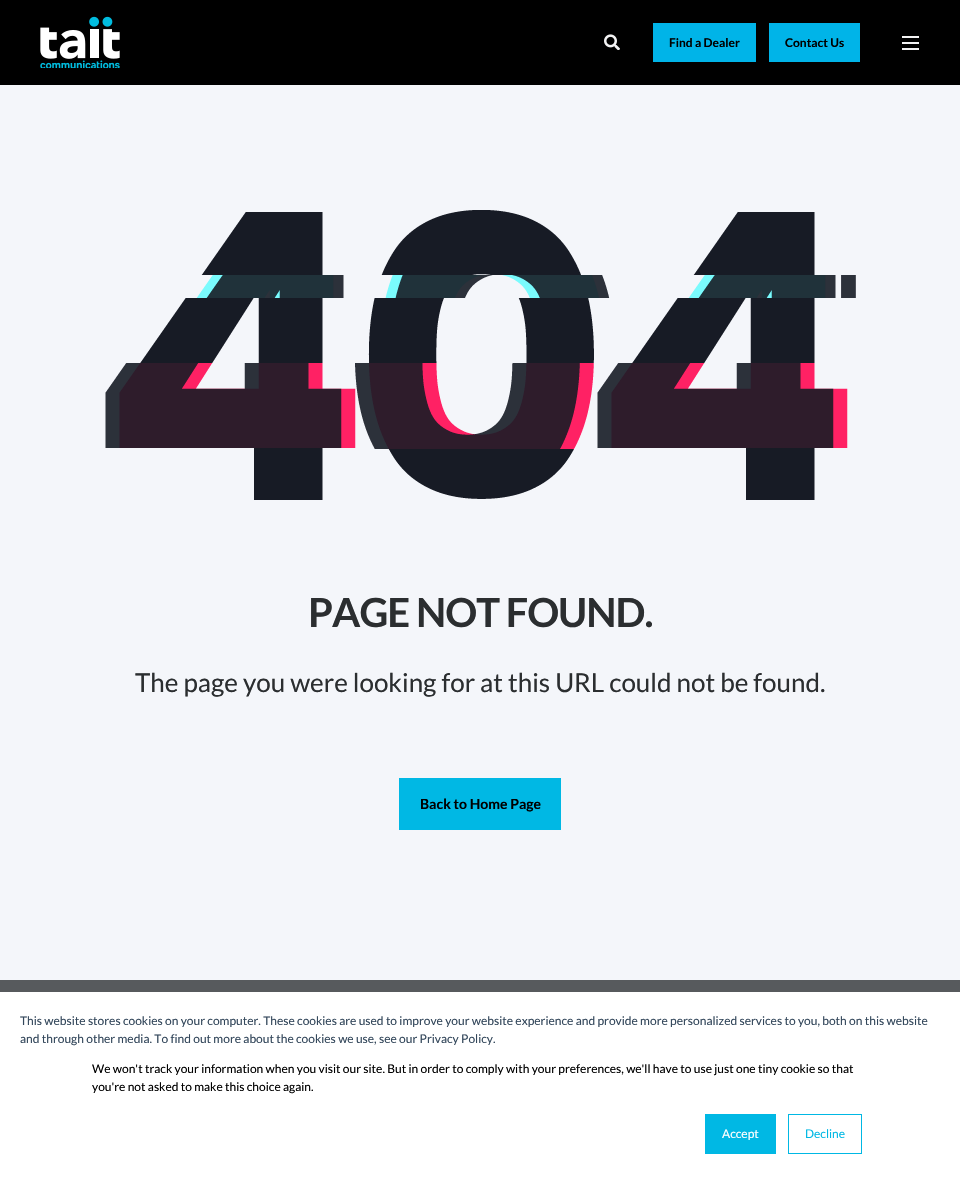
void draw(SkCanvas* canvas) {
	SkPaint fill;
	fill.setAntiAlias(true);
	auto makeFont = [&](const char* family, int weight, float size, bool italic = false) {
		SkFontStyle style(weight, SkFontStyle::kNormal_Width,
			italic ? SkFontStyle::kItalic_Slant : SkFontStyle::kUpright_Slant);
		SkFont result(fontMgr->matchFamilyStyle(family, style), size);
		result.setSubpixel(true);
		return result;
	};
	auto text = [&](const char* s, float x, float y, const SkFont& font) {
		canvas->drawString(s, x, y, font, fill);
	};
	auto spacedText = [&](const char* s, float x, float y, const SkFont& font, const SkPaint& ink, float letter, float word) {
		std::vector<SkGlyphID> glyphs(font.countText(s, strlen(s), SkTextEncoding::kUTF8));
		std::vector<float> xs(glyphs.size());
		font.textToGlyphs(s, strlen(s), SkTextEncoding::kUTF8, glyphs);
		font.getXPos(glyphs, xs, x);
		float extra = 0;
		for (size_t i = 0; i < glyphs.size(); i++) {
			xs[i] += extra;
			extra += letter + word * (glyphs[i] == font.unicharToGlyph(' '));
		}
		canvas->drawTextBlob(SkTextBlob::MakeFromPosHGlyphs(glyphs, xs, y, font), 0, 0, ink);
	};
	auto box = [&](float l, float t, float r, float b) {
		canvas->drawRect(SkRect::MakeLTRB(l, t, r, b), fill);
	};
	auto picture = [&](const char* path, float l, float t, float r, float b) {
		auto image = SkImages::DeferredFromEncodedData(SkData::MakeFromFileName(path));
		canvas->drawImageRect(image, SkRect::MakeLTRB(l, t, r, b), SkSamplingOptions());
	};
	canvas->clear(0xFFF4F6FA);
	fill.setColor(0xFF000000);
	box(0, 0, 960, 85);
	picture("image0.png", 40, 16, 120, 68);
	picture("image1.png", 604, 34, 620, 50);
	fill.setColor(0xFF00B4E8);
	box(653, 23, 756, 62);
	box(769, 23, 860, 62);
	fill.setColor(0xFFF3F3F4);
	box(902, 36, 919, 38);
	box(902, 42, 919, 44);
	box(902, 48, 919, 50);
	picture("image2.png", 105, 210, 856, 500);
	fill.setColor(0xFF00B8E4);
	box(399, 778, 561, 830);
	fill.setColor(0xFF575A5D);
	box(0, 980, 960, 992);
	fill.setColor(0xFFFFFFFF);
	box(0, 992, 960, 1180);
	fill.setColor(0xFF00B8E4);
	box(705, 1114, 776, 1154);
	fill.setStyle(SkPaint::kStroke_Style);
	fill.setStrokeWidth(1);
	canvas->drawRect(SkRect::MakeLTRB(788.5f, 1114.5f, 861.5f, 1153.5f), fill);
	auto font1 = makeFont("Lato", 700, 12);
	fill.setStyle(SkPaint::kFill_Style);
	fill.setColor(0xFF000000);
	text("Find a Dealer", 669, 47, font1);
	text("Contact Us", 785, 47, font1);
	auto font2 = makeFont("Lato", 700, 40);
	fill.setColor(0xFF2B2E30);
	spacedText("PAGE NOT FOUND.", 308, 627, font2, fill, -1, 0);
	auto font3 = makeFont("Lato", 400, 26);
	text("The page you were looking for at this URL could not be found.", 135, 692, font3);
	auto font4 = makeFont("Lato", 700, 14);
	fill.setColor(0xFF000000);
	text("Back to Home Page", 420, 809, font4);
	auto font5 = makeFont("Lato", 400, 12);
	fill.setColor(0xFF33475B);
	text("This website stores cookies on your computer. These cookies are used to improve your website experience and provide more personalized services to you, both on this website", 20, 1025, font5);
	text("and through other media. To find out more about the cookies we use, see our Privacy Policy.", 20, 1043, font5);
	fill.setColor(0xFF000000);
	text("We won't track your information when you visit our site. But in order to comply with your preferences, we'll have to use just one tiny cookie so that", 92, 1073, font5);
	text("you're not asked to make this choice again.", 92, 1091, font5);
	fill.setColor(0xFFFFFFFF);
	text("Accept", 722, 1138, font5);
	fill.setColor(0xFF00B8E4);
	text("Decline", 805, 1138, font5);
}
